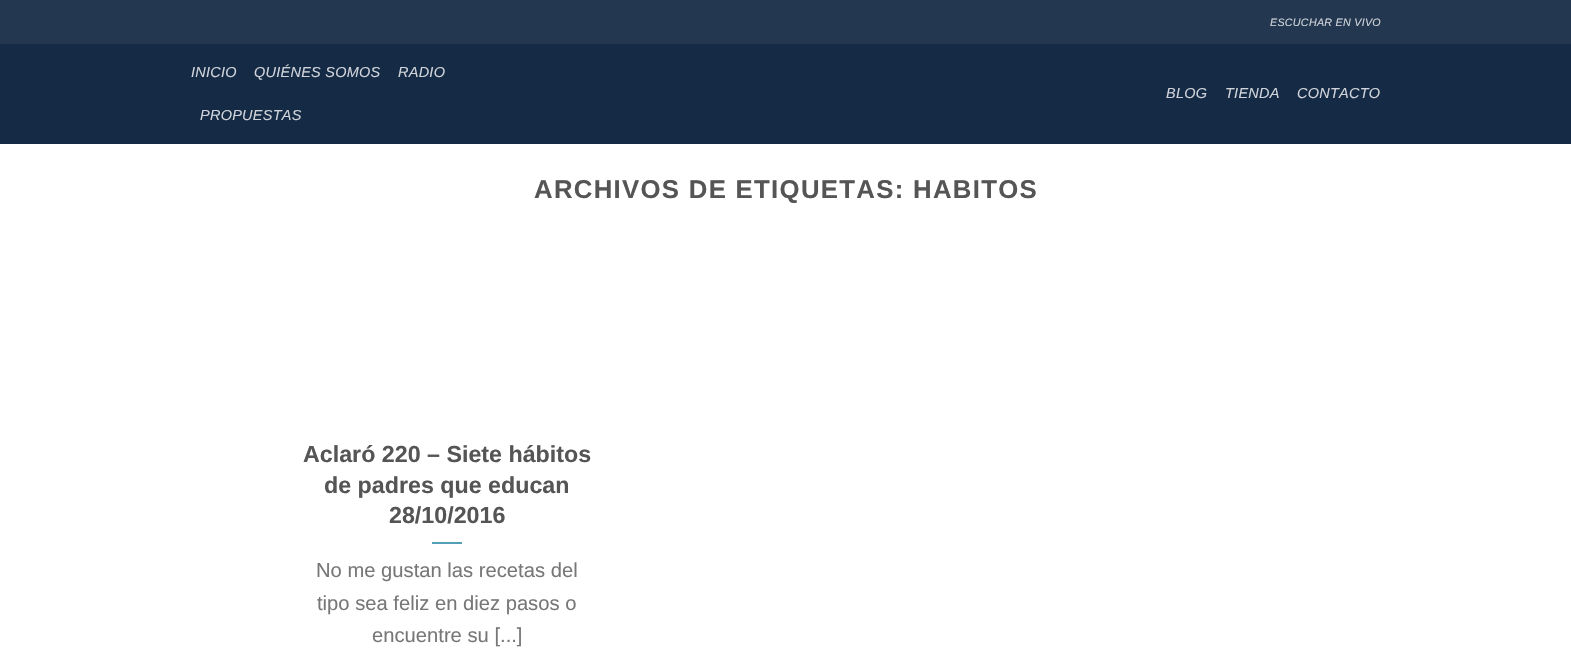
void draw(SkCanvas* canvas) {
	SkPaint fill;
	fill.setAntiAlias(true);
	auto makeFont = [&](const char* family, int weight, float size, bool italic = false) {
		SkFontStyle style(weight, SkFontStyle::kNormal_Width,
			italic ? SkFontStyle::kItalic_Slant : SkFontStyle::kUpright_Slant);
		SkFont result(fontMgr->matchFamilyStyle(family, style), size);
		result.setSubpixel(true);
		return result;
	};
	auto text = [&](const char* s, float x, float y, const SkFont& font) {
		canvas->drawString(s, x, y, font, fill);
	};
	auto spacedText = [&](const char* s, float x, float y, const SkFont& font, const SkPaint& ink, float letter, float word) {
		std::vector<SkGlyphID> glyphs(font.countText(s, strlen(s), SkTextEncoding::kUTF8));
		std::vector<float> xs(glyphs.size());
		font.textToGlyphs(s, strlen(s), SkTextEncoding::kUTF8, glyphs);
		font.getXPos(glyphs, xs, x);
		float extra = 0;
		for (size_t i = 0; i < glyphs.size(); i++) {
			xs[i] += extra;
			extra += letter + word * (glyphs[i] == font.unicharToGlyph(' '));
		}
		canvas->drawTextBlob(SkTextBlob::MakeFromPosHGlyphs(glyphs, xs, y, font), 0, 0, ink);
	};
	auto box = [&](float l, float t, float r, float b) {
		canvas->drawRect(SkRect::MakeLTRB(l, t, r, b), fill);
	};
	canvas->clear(0xFFFFFFFF);
	fill.setColor(0xFF233750);
	box(0, 0, 1571, 44);
	fill.setColor(0xFF152A45);
	box(0, 44, 1571, 144);
	fill.setColor(0xFF539FB7);
	box(432, 542, 462, 544);
	auto font1 = makeFont("Liberation Sans", 400, 10.75f, true);
	fill.setColor(0xFFD0D4DA);
	spacedText("ESCUCHAR EN VIVO", 1270, 26, font1, fill, 0.25f, 0);
	auto font2 = makeFont("Liberation Sans", 400, 14.5f, true);
	spacedText("INICIO", 191, 77, font2, fill, 0.25f, 0);
	spacedText("QUIÉNES SOMOS", 254, 77, font2, fill, 0.25f, 0);
	spacedText("RADIO", 398, 77, font2, fill, 0.25f, 0);
	spacedText("PROPUESTAS", 200, 120, font2, fill, 0.25f, 0);
	spacedText("BLOG", 1166, 98, font2, fill, 0.25f, 0);
	spacedText("TIENDA", 1225, 98, font2, fill, 0.25f, 0);
	spacedText("CONTACTO", 1297, 98, font2, fill, 0.25f, 0);
	auto font3 = makeFont("Liberation Sans", 700, 25.75f);
	fill.setColor(0xFF555555);
	spacedText("ARCHIVOS DE ETIQUETAS: HABITOS", 534, 198, font3, fill, 1.3f, 0);
	auto font4 = makeFont("Liberation Sans", 700, 23.25f);
	text("Aclaró 220 – Siete hábitos", 303, 462, font4);
	text("de padres que educan", 324, 493, font4);
	text("28/10/2016", 389, 523, font4);
	auto font5 = makeFont("Liberation Sans", 400, 20.2f);
	fill.setColor(0xFF777777);
	text("No me gustan las recetas del", 316, 577, font5);
	text("tipo sea feliz en diez pasos o", 317, 610, font5);
	text("encuentre su [...]", 372, 642, font5);
}
